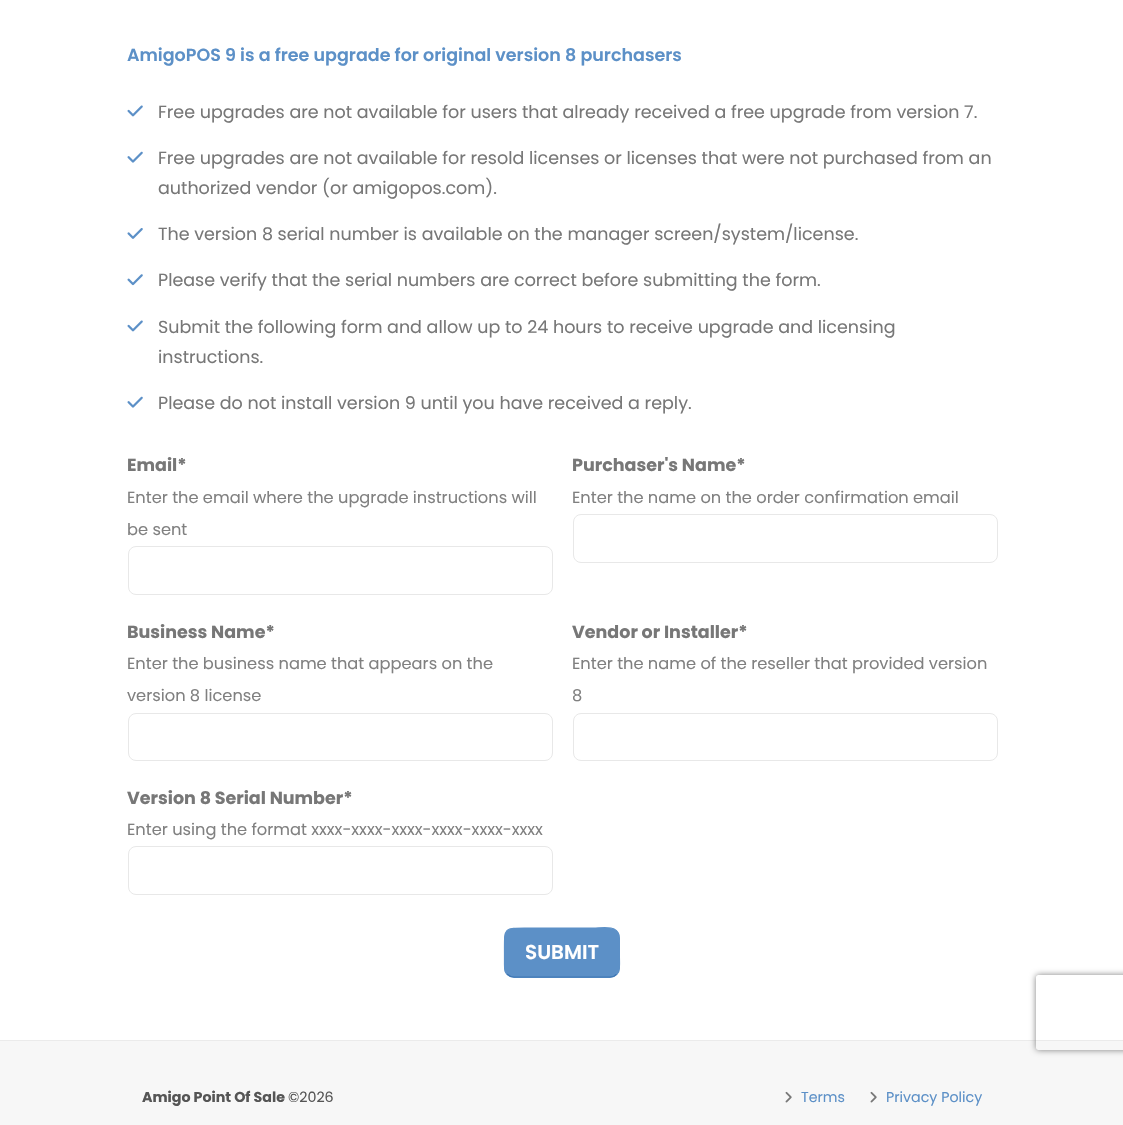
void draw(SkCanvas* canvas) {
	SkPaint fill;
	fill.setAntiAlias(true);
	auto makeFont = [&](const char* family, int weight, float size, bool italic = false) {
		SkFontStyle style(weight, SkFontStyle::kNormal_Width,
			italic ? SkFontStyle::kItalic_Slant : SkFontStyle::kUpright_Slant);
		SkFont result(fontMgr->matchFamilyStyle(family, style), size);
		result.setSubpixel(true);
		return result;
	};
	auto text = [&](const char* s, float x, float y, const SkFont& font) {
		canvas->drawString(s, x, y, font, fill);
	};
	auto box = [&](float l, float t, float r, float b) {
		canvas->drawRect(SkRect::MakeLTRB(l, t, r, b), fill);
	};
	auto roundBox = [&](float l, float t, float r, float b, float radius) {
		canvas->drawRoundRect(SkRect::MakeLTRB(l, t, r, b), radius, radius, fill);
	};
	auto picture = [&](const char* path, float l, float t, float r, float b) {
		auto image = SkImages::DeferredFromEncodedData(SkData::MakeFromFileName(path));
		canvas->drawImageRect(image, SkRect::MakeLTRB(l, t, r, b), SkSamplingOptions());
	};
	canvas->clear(0xFFFFFFFF);
	picture("image0.png", 127, 105, 143, 117);
	picture("image1.png", 127, 151, 143, 163);
	picture("image2.png", 127, 228, 143, 239);
	picture("image3.png", 127, 274, 143, 286);
	picture("image0.png", 127, 320, 143, 332);
	picture("image1.png", 127, 396, 143, 408);
	fill.setStyle(SkPaint::kStroke_Style);
	fill.setStrokeWidth(1);
	fill.setColor(0xFFE8E8E8);
	canvas->drawRoundRect(SkRect::MakeLTRB(128.5f, 546.5f, 552.5f, 594.5f), 7.5f, 7.5f, fill);
	canvas->drawRoundRect(SkRect::MakeLTRB(573.5f, 514.5f, 997.5f, 562.5f), 7.5f, 7.5f, fill);
	canvas->drawRoundRect(SkRect::MakeLTRB(128.5f, 713.5f, 552.5f, 760.5f), 7.5f, 7.5f, fill);
	canvas->drawRoundRect(SkRect::MakeLTRB(573.5f, 713.5f, 997.5f, 760.5f), 7.5f, 7.5f, fill);
	canvas->drawRoundRect(SkRect::MakeLTRB(128.5f, 846.5f, 552.5f, 894.5f), 7.5f, 7.5f, fill);
	fill.setStyle(SkPaint::kFill_Style);
	fill.setColor(0xFF5C90C7);
	roundBox(504, 928, 620, 978, 10);
	fill.setStyle(SkPaint::kStroke_Style);
	fill.setStrokeWidth(1.2f);
	fill.setColor(0xFF3D76B3);
	canvas->drawPath(SkPathBuilder().moveTo(616.5f, 974).cubicTo(615, 976, 612.5f, 977, 610, 977).lineTo(514, 977).cubicTo(511.5f, 977, 509, 976, 507, 974).detach(), fill);
	fill.setColor(0xFF5C90C7);
	canvas->drawPath(SkPathBuilder().moveTo(507, 974).cubicTo(504, 971, 504.5f, 967, 504.5f, 962.5f).lineTo(504.5f, 952.5f).cubicTo(504.5f, 926.5f, 503, 928, 530, 928).lineTo(594, 928).cubicTo(601, 928, 617, 924.5f, 619, 935.5f).lineTo(619.5f, 962.5f).cubicTo(619.5f, 967, 620, 971, 616.5f, 974).detach(), fill);
	fill.setStyle(SkPaint::kFill_Style);
	fill.setColor(0xFFF7F7F7);
	box(0, 1041, 1123, 1125);
	fill.setColor(0xFFEBEBEB);
	box(0, 1040, 1123, 1041);
	picture("image4.png", 785, 1091, 792, 1103);
	picture("image4.png", 870, 1091, 877, 1103);
	canvas->save();
	canvas->clipPath(SkPathBuilder(SkPathFillType::kEvenOdd).moveTo(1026, 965).lineTo(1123, 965).lineTo(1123, 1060).lineTo(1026, 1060).close().moveTo(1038.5f, 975).lineTo(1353.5f, 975).cubicTo(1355, 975, 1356, 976, 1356, 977.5f).lineTo(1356, 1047.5f).cubicTo(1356, 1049, 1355, 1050, 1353.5f, 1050).lineTo(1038.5f, 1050).cubicTo(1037, 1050, 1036, 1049, 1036, 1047.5f).lineTo(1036, 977.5f).cubicTo(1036, 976, 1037, 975, 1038.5f, 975).close().detach(), true);
	fill.setColor(0xFF808080);
	fill.setMaskFilter(SkMaskFilter::MakeBlur(kNormal_SkBlurStyle, 3));
	canvas->drawRoundRect(SkRect::MakeLTRB(1036, 975, 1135, 1050), 2.5f, 2.5f, fill);
	fill.setMaskFilter(nullptr);
	canvas->restore();
	auto font1 = makeFont("Poppins", 600, 17.5f);
	fill.setColor(0xFF5C90C7);
	text("AmigoPOS 9 is a free upgrade for original version 8 purchasers", 127, 61, font1);
	auto font2 = makeFont("Poppins", 400, 17.5f);
	fill.setColor(0xFF777777);
	text("Free upgrades are not available for users that already received a free upgrade from version 7.", 158, 118, font2);
	text("Free upgrades are not available for resold licenses or licenses that were not purchased from an", 158, 164, font2);
	text("authorized vendor (or amigopos.com).", 158, 194, font2);
	text("The version 8 serial number is available on the manager screen/system/license.", 158, 240, font2);
	text("Please verify that the serial numbers are correct before submitting the form.", 158, 286, font2);
	text("Submit the following form and allow up to 24 hours to receive upgrade and licensing", 158, 333, font2);
	text("instructions.", 158, 363, font2);
	text("Please do not install version 9 until you have received a reply.", 158, 409, font2);
	auto font3 = makeFont("Poppins", 700, 17.5f);
	text("Email*", 127, 471, font3);
	auto font4 = makeFont("Poppins", 400, 16.25f);
	fill.setColor(0xFF808080);
	text("Enter the email where the upgrade instructions will", 127, 503, font4);
	text("be sent", 127, 535, font4);
	fill.setColor(0xFF777777);
	text("Purchaser's Name*", 572, 471, font3);
	fill.setColor(0xFF808080);
	text("Enter the name on the order confirmation email", 572, 503, font4);
	fill.setColor(0xFF777777);
	text("Business Name*", 127, 638, font3);
	fill.setColor(0xFF808080);
	text("Enter the business name that appears on the", 127, 669, font4);
	text("version 8 license", 127, 701, font4);
	fill.setColor(0xFF777777);
	text("Vendor or Installer*", 572, 638, font3);
	fill.setColor(0xFF808080);
	text("Enter the name of the reseller that provided version", 572, 669, font4);
	text("8", 572, 701, font4);
	fill.setColor(0xFF777777);
	text("Version 8 Serial Number*", 127, 804, font3);
	fill.setColor(0xFF808080);
	text("Enter using the format xxxx-xxxx-xxxx-xxxx-xxxx-xxxx", 127, 835, font4);
	auto font5 = makeFont("Poppins", 600, 20);
	fill.setColor(0xFFFFFFFF);
	text("SUBMIT", 525, 959, font5);
	auto font6 = makeFont("Poppins", 700, 14.25f);
	fill.setColor(0xFF555555);
	text("Amigo Point Of Sale", 142, 1102, font6);
	auto font7 = makeFont("Poppins", 400, 14.25f);
	text("©2026", 288, 1102, font7);
	fill.setColor(0xFF5C90C7);
	text("Terms", 801, 1102, font7);
	text("Privacy Policy", 886, 1102, font7);
}
